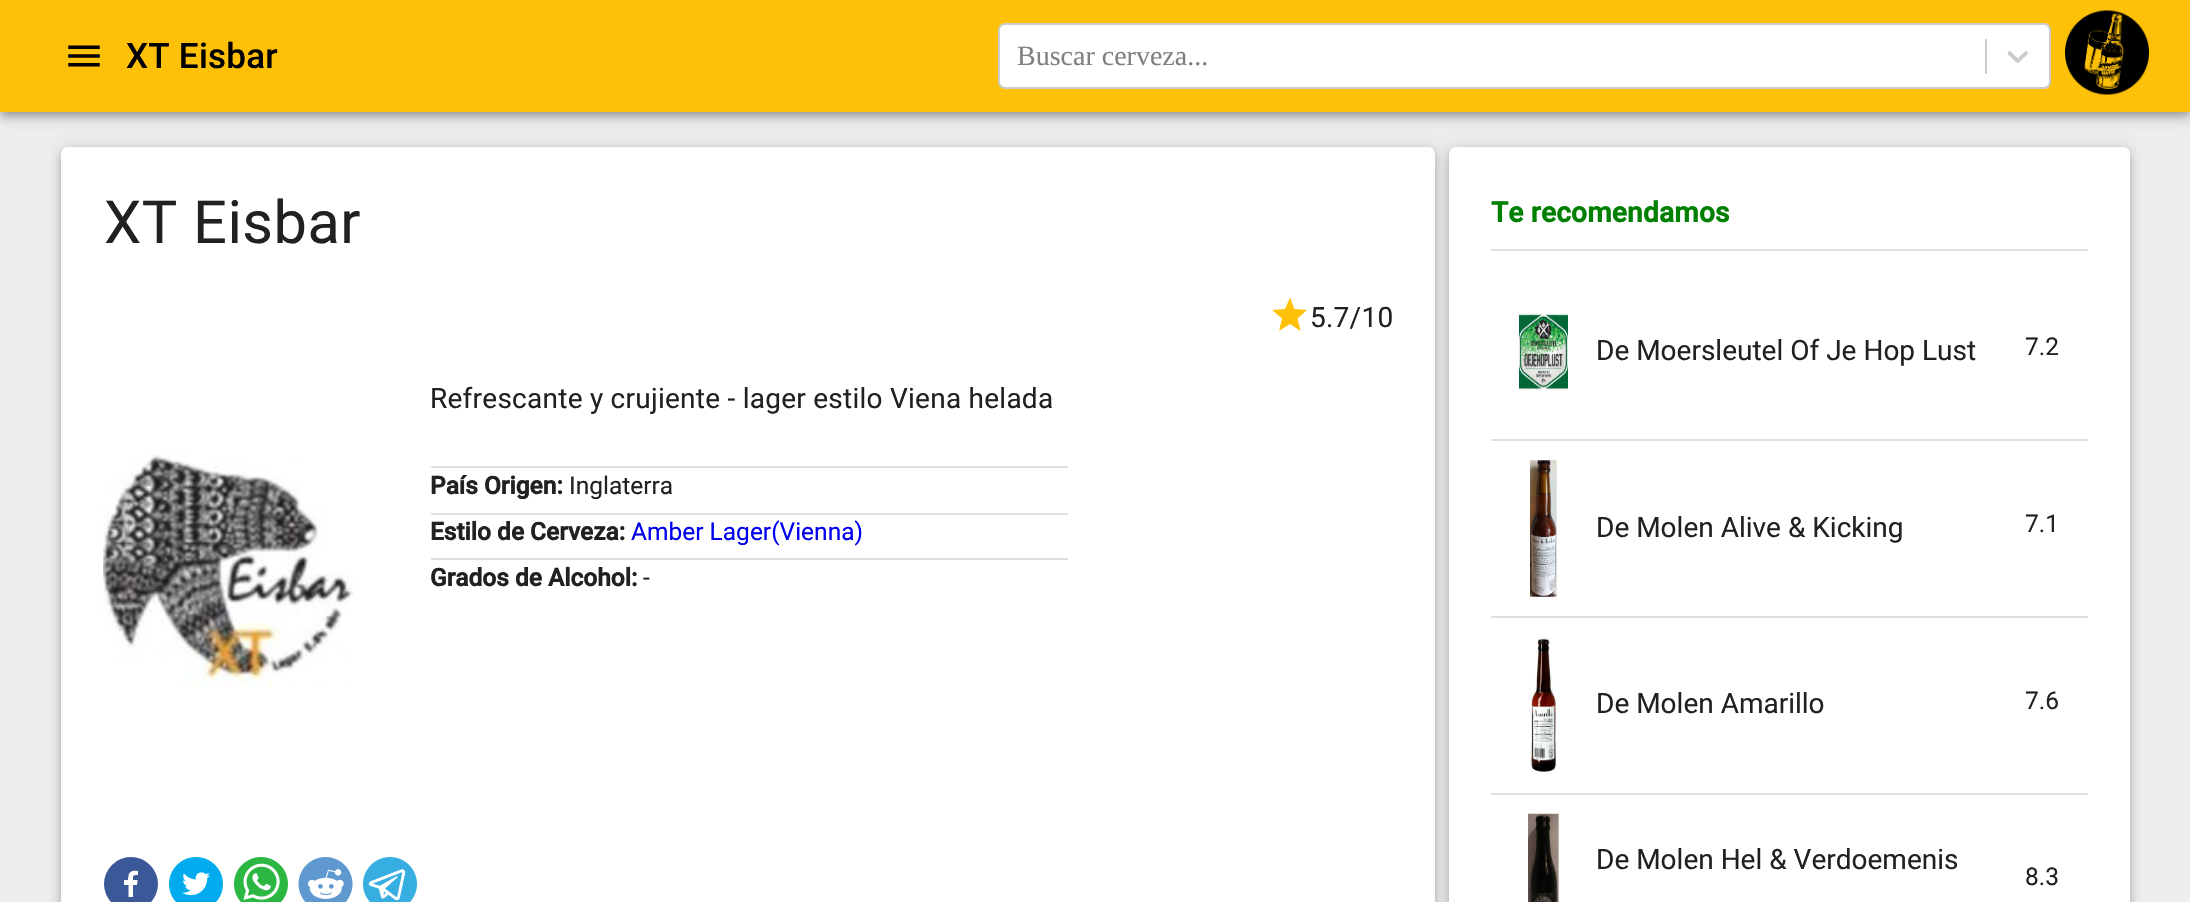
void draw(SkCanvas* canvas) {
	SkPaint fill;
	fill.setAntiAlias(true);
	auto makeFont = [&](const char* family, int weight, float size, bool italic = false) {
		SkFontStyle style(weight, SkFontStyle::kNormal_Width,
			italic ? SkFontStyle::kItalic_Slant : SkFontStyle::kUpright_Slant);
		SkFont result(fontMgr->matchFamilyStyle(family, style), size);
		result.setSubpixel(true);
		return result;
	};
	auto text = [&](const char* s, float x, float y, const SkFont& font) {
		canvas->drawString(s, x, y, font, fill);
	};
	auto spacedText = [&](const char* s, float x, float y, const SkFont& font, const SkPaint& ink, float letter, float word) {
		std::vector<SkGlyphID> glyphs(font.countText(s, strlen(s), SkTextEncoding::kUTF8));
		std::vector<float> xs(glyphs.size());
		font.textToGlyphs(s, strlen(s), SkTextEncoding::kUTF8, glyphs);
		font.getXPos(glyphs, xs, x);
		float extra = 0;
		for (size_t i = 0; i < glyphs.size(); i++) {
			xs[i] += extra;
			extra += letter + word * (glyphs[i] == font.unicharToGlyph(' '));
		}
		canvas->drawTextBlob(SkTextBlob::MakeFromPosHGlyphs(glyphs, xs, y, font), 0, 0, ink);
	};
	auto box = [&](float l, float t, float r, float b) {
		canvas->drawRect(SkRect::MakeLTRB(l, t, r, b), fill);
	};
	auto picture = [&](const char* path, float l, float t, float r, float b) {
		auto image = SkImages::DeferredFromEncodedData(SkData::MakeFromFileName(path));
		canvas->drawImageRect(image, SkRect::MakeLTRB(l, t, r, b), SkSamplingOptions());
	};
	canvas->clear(0xFFEEEEEE);
	fill.setColor(0x1F000000);
	fill.setMaskFilter(SkMaskFilter::MakeBlur(kNormal_SkBlurStyle, 9));
	canvas->drawRect(SkRect::MakeLTRB(0, 2, 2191, 114), fill);
	fill.setMaskFilter(nullptr);
	fill.setColor(0x24000000);
	fill.setMaskFilter(SkMaskFilter::MakeBlur(kNormal_SkBlurStyle, 4.5f));
	canvas->drawRect(SkRect::MakeLTRB(0, 7, 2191, 119), fill);
	fill.setMaskFilter(nullptr);
	fill.setColor(0x33000000);
	fill.setMaskFilter(SkMaskFilter::MakeBlur(kNormal_SkBlurStyle, 3.5f));
	canvas->drawRect(SkRect::MakeLTRB(2, 5, 2189, 114), fill);
	fill.setMaskFilter(nullptr);
	fill.setColor(0xFFFFC107);
	box(0, 0, 2190, 112);
	picture("image0.png", 68, 45, 100, 67);
	fill.setColor(0xFFFFFFFF);
	canvas->drawRoundRect(SkRect::MakeLTRB(999, 24, 2050, 88), 6, 6, fill);
	fill.setStyle(SkPaint::kStroke_Style);
	fill.setStrokeWidth(2);
	fill.setColor(0xFFCCCCCC);
	canvas->drawRoundRect(SkRect::MakeLTRB(999, 24, 2050, 88), 6, 6, fill);
	fill.setStyle(SkPaint::kFill_Style);
	box(1985, 39, 1987, 74);
	picture("image1.png", 2007, 51, 2028, 63);
	picture("image2.png", 2065, 10, 2149, 95);
	fill.setColor(0x24000000);
	fill.setMaskFilter(SkMaskFilter::MakeBlur(kNormal_SkBlurStyle, 3.5f));
	canvas->drawRoundRect(SkRect::MakeLTRB(61, 152, 1435, 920), 7, 7, fill);
	fill.setMaskFilter(nullptr);
	fill.setColor(0x33000000);
	fill.setMaskFilter(SkMaskFilter::MakeBlur(kNormal_SkBlurStyle, 7));
	canvas->drawRoundRect(SkRect::MakeLTRB(61, 149, 1435, 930), 7, 7, fill);
	fill.setMaskFilter(nullptr);
	fill.setColor(0xFFFFFFFF);
	canvas->drawPath(SkPathBuilder().moveTo(68, 147).lineTo(1428, 147).cubicTo(1432, 147, 1435, 150, 1435, 154).lineTo(1435, 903).lineTo(61, 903).lineTo(61, 154).cubicTo(61, 150, 64, 147, 68, 147).close().detach(), fill);
	picture("image3.png", 103, 454, 355, 687);
	fill.setColor(0xFFFFC107);
	canvas->drawPath(SkPathBuilder().moveTo(1290, 324).lineTo(1300.5f, 331).lineTo(1297.5f, 318.5f).lineTo(1307, 310).lineTo(1294.5f, 309).lineTo(1290, 297.5f).lineTo(1285, 309).lineTo(1272, 310).lineTo(1282, 318.5f).lineTo(1279, 331).close().detach(), fill);
	fill.setColor(0xFFE0E0E0);
	box(431, 466, 1068, 468);
	box(431, 513, 1068, 515);
	box(431, 558, 1068, 560);
	fill.setColor(0xFF3B5998);
	canvas->drawCircle(131, 884, 27, fill);
	fill.setColor(0xFFFFFFFF);
	canvas->drawPath(SkPathBuilder().moveTo(133, 897).lineTo(133, 885).lineTo(137, 885).lineTo(137.5f, 880).lineTo(133, 880).cubicTo(133, 875.5f, 132.5f, 875, 138, 875).lineTo(138, 871).cubicTo(134, 870, 129, 871, 128.5f, 875.5f).lineTo(128, 880).lineTo(124, 880).lineTo(124, 885).lineTo(128.5f, 885).lineTo(128.5f, 897).close().detach(), fill);
	picture("image4.png", 169, 857, 223, 902);
	picture("image5.png", 234, 857, 288, 902);
	picture("image6.png", 298, 857, 353, 902);
	picture("image7.png", 363, 857, 417, 902);
	fill.setColor(0x24000000);
	fill.setMaskFilter(SkMaskFilter::MakeBlur(kNormal_SkBlurStyle, 3.5f));
	canvas->drawRoundRect(SkRect::MakeLTRB(1449, 152, 2130, 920), 7, 7, fill);
	fill.setMaskFilter(nullptr);
	fill.setColor(0x33000000);
	fill.setMaskFilter(SkMaskFilter::MakeBlur(kNormal_SkBlurStyle, 7));
	canvas->drawRoundRect(SkRect::MakeLTRB(1449, 149, 2130, 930), 7, 7, fill);
	fill.setMaskFilter(nullptr);
	fill.setColor(0xFFFFFFFF);
	canvas->drawPath(SkPathBuilder().moveTo(1456, 147).lineTo(2123, 147).cubicTo(2127, 147, 2130, 150, 2130, 154).lineTo(2130, 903).lineTo(1449, 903).lineTo(1449, 154).cubicTo(1449, 150, 1452, 147, 1456, 147).close().detach(), fill);
	fill.setColor(0xFFE0E0E0);
	box(1491, 249, 2088, 251);
	box(1491, 439, 2088, 441);
	picture("image8.png", 1519, 313, 1568, 390);
	box(1491, 616, 2088, 618);
	picture("image9.png", 1529, 460, 1557, 597);
	box(1491, 793, 2088, 795);
	picture("image10.png", 1529, 637, 1557, 772);
	picture("image11.png", 1528, 813, 1560, 902);
	auto font1 = makeFont("Roboto", 500, 35);
	fill.setColor(0xFF000000);
	spacedText("XT Eisbar", 126, 68, font1, fill, 0.25f, 0);
	auto font2 = makeFont("Liberation Serif", 400, 28);
	fill.setColor(0xFF808080);
	text("Buscar cerveza...", 1017, 65, font2);
	auto font3 = makeFont("Roboto", 400, 59.5f);
	fill.setColor(0xFF212121);
	spacedText("XT Eisbar", 104, 243, font3, fill, 0.5f, 0);
	auto font4 = makeFont("Roboto", 400, 28);
	spacedText("5.7/10", 1310, 327, font4, fill, 0.25f, 0);
	spacedText("Refrescante y crujiente - lager estilo Viena helada", 430, 408, font4, fill, 0.25f, 0);
	auto font5 = makeFont("Roboto", 700, 24.5f);
	text("País Origen:", 430, 494, font5);
	auto font6 = makeFont("Roboto", 400, 24.5f);
	text("Inglaterra", 569, 494, font6);
	text("Estilo de Cerveza:", 430, 540, font5);
	fill.setColor(0xFF0000EE);
	text("Amber Lager(Vienna)", 631, 540, font6);
	fill.setColor(0xFF212121);
	text("Grados de Alcohol:", 430, 586, font5);
	text("-", 643, 586, font6);
	auto font7 = makeFont("Roboto", 700, 28);
	fill.setColor(0xFF008000);
	spacedText("Te recomendamos", 1491, 222, font7, fill, 0.25f, 0);
	fill.setColor(0xFF212121);
	text("De Moersleutel Of Je Hop Lust", 1596, 360, font4);
	text("7.2", 2025, 355, font6);
	text("De Molen Alive & Kicking", 1596, 537, font4);
	text("7.1", 2025, 532, font6);
	text("De Molen Amarillo", 1596, 713, font4);
	text("7.6", 2025, 709, font6);
	text("De Molen Hel & Verdoemenis", 1596, 869, font4);
	text("8.3", 2025, 885, font6);
}
